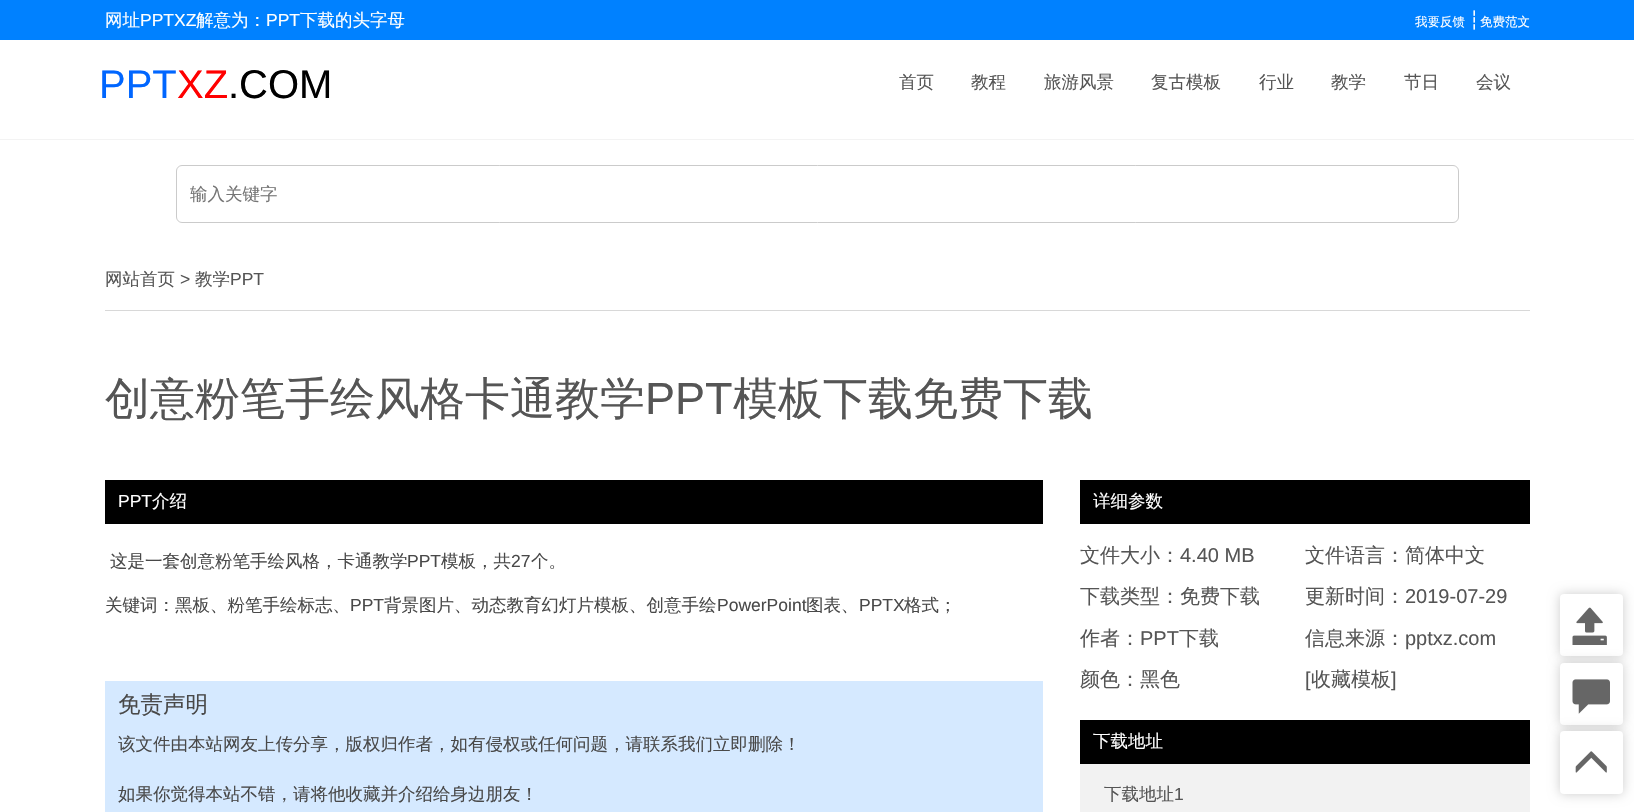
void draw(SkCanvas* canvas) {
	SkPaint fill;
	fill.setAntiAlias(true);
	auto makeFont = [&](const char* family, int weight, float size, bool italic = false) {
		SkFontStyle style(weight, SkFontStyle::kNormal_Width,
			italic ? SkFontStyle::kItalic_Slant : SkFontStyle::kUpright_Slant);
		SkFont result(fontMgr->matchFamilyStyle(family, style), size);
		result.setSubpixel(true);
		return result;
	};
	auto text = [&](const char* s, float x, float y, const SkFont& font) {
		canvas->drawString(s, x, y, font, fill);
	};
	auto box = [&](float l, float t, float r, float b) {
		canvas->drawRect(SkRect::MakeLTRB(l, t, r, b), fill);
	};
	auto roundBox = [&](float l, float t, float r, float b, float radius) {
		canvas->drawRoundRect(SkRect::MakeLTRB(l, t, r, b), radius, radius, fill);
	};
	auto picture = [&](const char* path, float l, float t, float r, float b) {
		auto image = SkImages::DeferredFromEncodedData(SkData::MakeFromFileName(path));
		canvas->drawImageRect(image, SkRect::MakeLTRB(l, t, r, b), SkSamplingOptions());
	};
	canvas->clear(0xFFFFFFFF);
	fill.setColor(0xFF0081FF);
	box(0, 0, 1634, 40);
	fill.setColor(0xFFF3F3F3);
	box(0, 139, 1634, 140);
	fill.setStyle(SkPaint::kStroke_Style);
	fill.setStrokeWidth(1);
	fill.setColor(0xFFCBCBCB);
	canvas->drawRoundRect(SkRect::MakeLTRB(176.5f, 165.5f, 1458.5f, 222.5f), 5.5f, 5.5f, fill);
	fill.setStyle(SkPaint::kFill_Style);
	fill.setColor(0xFFD8D8D8);
	box(105, 310, 1530, 311);
	fill.setColor(0xFF000000);
	box(105, 480, 1043, 524);
	fill.setColor(0xFFD5E9FF);
	box(105, 681, 1043, 812);
	fill.setColor(0xFF000000);
	box(1080, 480, 1530, 524);
	box(1080, 720, 1530, 764);
	fill.setColor(0xFFF2F2F2);
	box(1080, 764, 1530, 812);
	fill.setColor(0x33000000);
	fill.setMaskFilter(SkMaskFilter::MakeBlur(kNormal_SkBlurStyle, 6));
	canvas->drawRoundRect(SkRect::MakeLTRB(1560, 594, 1623, 656), 4, 4, fill);
	fill.setMaskFilter(nullptr);
	fill.setColor(0xFFFFFFFF);
	roundBox(1560, 594, 1623, 656, 4);
	fill.setColor(0x33000000);
	fill.setMaskFilter(SkMaskFilter::MakeBlur(kNormal_SkBlurStyle, 6));
	canvas->drawRoundRect(SkRect::MakeLTRB(1560, 663, 1623, 725), 4, 4, fill);
	fill.setMaskFilter(nullptr);
	picture("image0.png", 1572, 607, 1607, 645);
	fill.setColor(0xFFFFFFFF);
	roundBox(1560, 663, 1623, 725, 4);
	fill.setColor(0x33000000);
	fill.setMaskFilter(SkMaskFilter::MakeBlur(kNormal_SkBlurStyle, 6));
	canvas->drawRoundRect(SkRect::MakeLTRB(1560, 731, 1623, 794), 4, 4, fill);
	fill.setMaskFilter(nullptr);
	picture("image1.png", 1572, 679, 1610, 714);
	fill.setColor(0xFFFFFFFF);
	roundBox(1560, 731, 1623, 794, 4);
	picture("image2.png", 1575, 751, 1607, 773);
	auto font1 = makeFont("WenQuanYi Zen Hei", 500, 17.5f);
	text("网址", 105, 26, font1);
	auto font2 = makeFont("Liberation Sans", 400, 17.5f);
	text("PPTXZ", 140, 26, font2);
	text("解意为：", 196, 26, font1);
	text("PPT", 266, 26, font2);
	text("下载的头字母", 300, 26, font1);
	auto font3 = makeFont("WenQuanYi Zen Hei", 500, 12.5f);
	text("我要反馈", 1415, 26, font3);
	auto font4 = makeFont("DejaVu Sans", 400, 17.5f);
	text("┆", 1469, 26, font4);
	text("免费范文", 1480, 26, font3);
	auto font5 = makeFont("Liberation Sans", 400, 40);
	fill.setColor(0xFF0066FF);
	text("PPT", 99, 98, font5);
	fill.setColor(0xFFFF0000);
	text("XZ", 177, 98, font5);
	fill.setColor(0xFF000000);
	text(".COM", 228, 98, font5);
	fill.setColor(0xFF555555);
	text("首页", 899, 88, font1);
	text("教程", 971, 88, font1);
	text("旅游风景", 1044, 88, font1);
	text("复古模板", 1151, 88, font1);
	text("行业", 1259, 88, font1);
	text("教学", 1331, 88, font1);
	text("节日", 1404, 88, font1);
	text("会议", 1476, 88, font1);
	fill.setColor(0xFF757575);
	text("输入关键字", 190, 200, font1);
	fill.setColor(0xFF555555);
	text("网站首页", 105, 285, font1);
	text(">", 180, 285, font2);
	text("教学", 195, 285, font1);
	text("PPT", 230, 285, font2);
	auto font6 = makeFont("WenQuanYi Zen Hei", 500, 45);
	text("创意粉笔手绘风格卡通教学", 105, 414, font6);
	auto font7 = makeFont("Liberation Sans", 400, 45);
	text("PPT", 645, 414, font7);
	text("模板下载免费下载", 733, 414, font6);
	fill.setColor(0xFFFFFFFF);
	text("PPT", 118, 507, font2);
	text("介绍", 152, 507, font1);
	fill.setColor(0xFF494949);
	text("这是一套创意粉笔手绘风格，卡通教学", 110, 567, font1);
	text("PPT", 407, 567, font2);
	text("模板，共", 441, 567, font1);
	text("27", 511, 567, font2);
	text("个。", 531, 567, font1);
	text("关键词：黑板、粉笔手绘标志、", 105, 611, font1);
	text("PPT", 350, 611, font2);
	text("背景图片、动态教育幻灯片模板、创意手绘", 384, 611, font1);
	text("PowerPoint", 717, 611, font2);
	text("图表、", 806, 611, font1);
	text("PPTX", 859, 611, font2);
	text("格式；", 904, 611, font1);
	auto font8 = makeFont("WenQuanYi Zen Hei", 500, 22.5f);
	text("免责声明", 118, 712, font8);
	text("该文件由本站网友上传分享，版权归作者，如有侵权或任何问题，请联系我们立即删除！", 118, 750, font1);
	text("如果你觉得本站不错，请将他收藏并介绍给身边朋友！", 118, 800, font1);
	fill.setColor(0xFFFFFFFF);
	text("详细参数", 1093, 507, font1);
	auto font9 = makeFont("WenQuanYi Zen Hei", 500, 20);
	fill.setColor(0xFF555555);
	text("文件大小：", 1080, 562, font9);
	auto font10 = makeFont("Liberation Sans", 400, 20);
	text("4.40 MB", 1180, 562, font10);
	text("文件语言：简体中文", 1305, 562, font9);
	text("下载类型：免费下载", 1080, 603, font9);
	text("更新时间：", 1305, 603, font9);
	text("2019-07-29", 1405, 603, font10);
	text("作者：", 1080, 645, font9);
	text("PPT", 1140, 645, font10);
	text("下载", 1179, 645, font9);
	text("信息来源：", 1305, 645, font9);
	text("pptxz.com", 1405, 645, font10);
	text("颜色：黑色", 1080, 686, font9);
	text("[", 1305, 686, font10);
	text("收藏模板", 1311, 686, font9);
	text("]", 1391, 686, font10);
	fill.setColor(0xFFFFFFFF);
	text("下载地址", 1093, 747, font1);
	fill.setColor(0xFF555555);
	text("下载地址", 1104, 800, font1);
	text("1", 1174, 800, font2);
}
